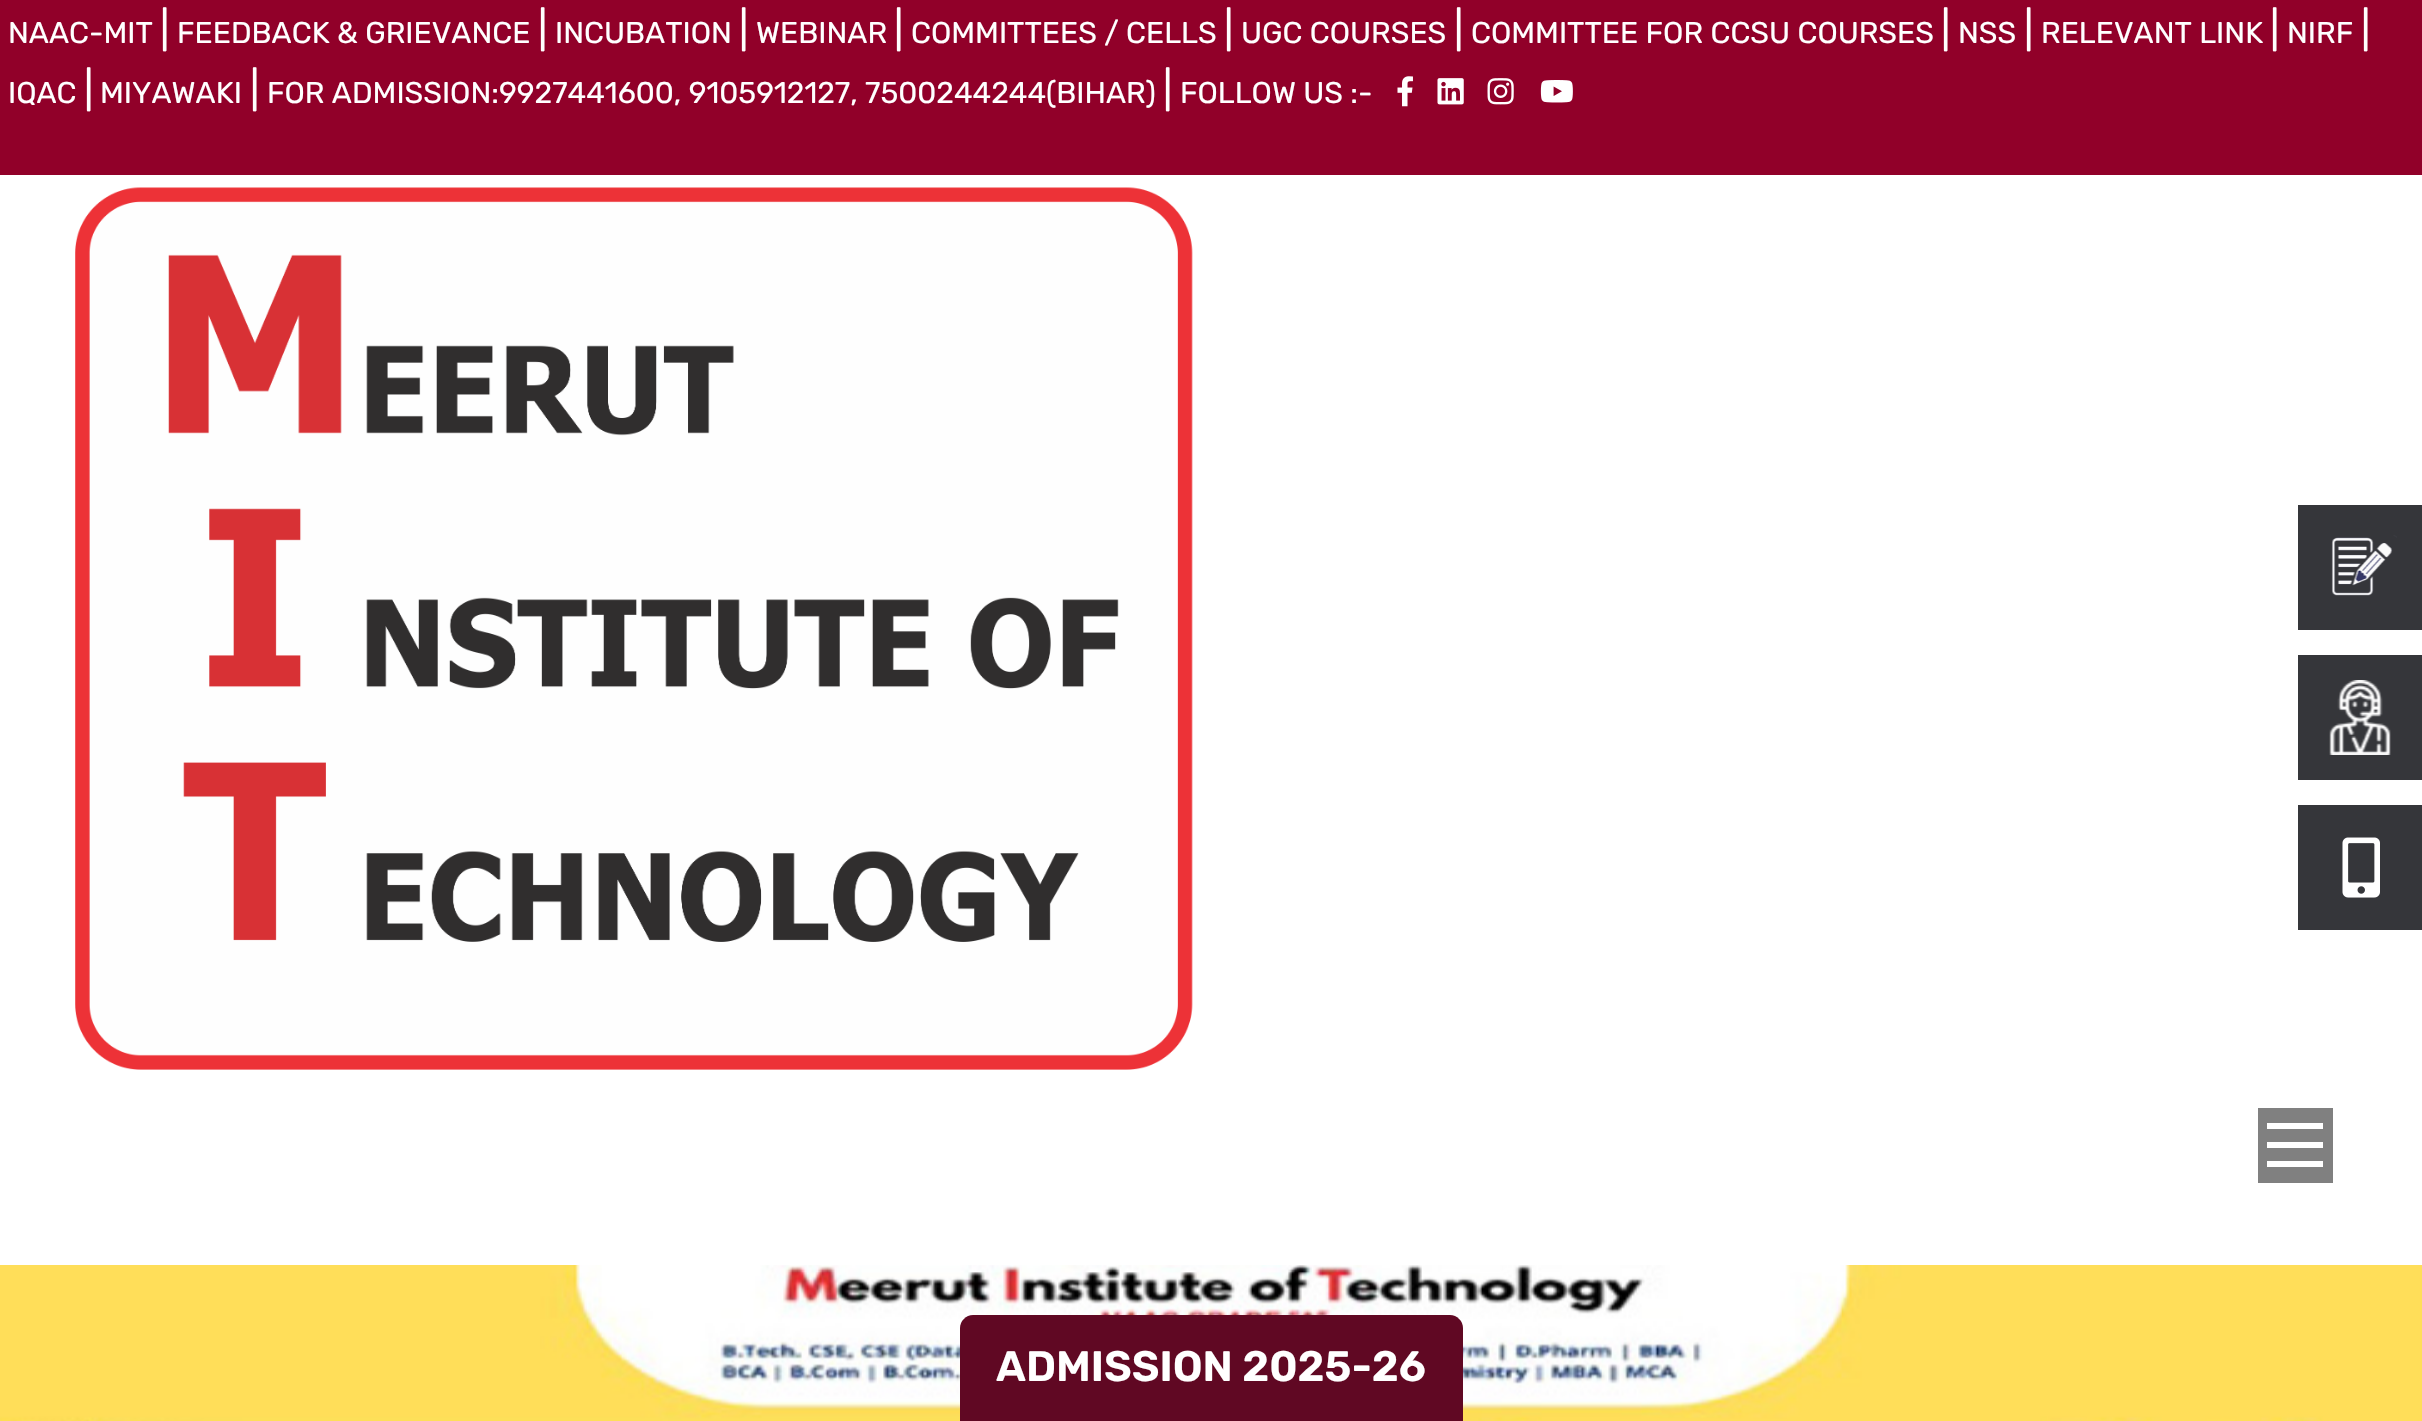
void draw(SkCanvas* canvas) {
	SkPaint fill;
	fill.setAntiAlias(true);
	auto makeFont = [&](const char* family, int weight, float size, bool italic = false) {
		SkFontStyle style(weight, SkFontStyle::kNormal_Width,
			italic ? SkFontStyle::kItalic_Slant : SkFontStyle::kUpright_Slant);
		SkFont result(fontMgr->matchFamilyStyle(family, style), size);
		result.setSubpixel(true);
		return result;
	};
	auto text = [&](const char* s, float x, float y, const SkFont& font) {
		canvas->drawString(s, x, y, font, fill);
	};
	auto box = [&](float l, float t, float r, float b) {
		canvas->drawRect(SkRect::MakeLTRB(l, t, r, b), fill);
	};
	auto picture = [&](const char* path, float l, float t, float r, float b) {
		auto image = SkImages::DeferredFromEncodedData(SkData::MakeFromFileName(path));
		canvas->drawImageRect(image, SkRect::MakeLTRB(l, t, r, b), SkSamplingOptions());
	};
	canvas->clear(0xFFFFFFFF);
	fill.setColor(0xFF910029);
	box(0, 0, 2422, 175);
	picture("image0.png", 1397, 76, 1413, 107);
	picture("image1.png", 1437, 78, 1464, 105);
	picture("image2.png", 1487, 78, 1514, 105);
	picture("image3.png", 1540, 80, 1573, 103);
	picture("image4.png", 75, 187, 1193, 1070);
	fill.setColor(0xFF35363A);
	box(2298, 505, 2422, 630);
	picture("image5.png", 2331, 535, 2397, 596);
	box(2298, 655, 2422, 780);
	picture("image6.png", 2329, 680, 2391, 755);
	box(2298, 805, 2422, 930);
	picture("image7.png", 2342, 837, 2380, 898);
	fill.setColor(0xFF808080);
	box(2258, 1108, 2333, 1183);
	fill.setColor(0xFFFFFFFF);
	box(2267, 1142, 2323, 1148);
	box(2267, 1123, 2323, 1129);
	box(2267, 1161, 2323, 1167);
	picture("image8.png", 0, 1265, 2422, 1421);
	fill.setColor(0xFF600823);
	canvas->drawPath(SkPathBuilder().moveTo(973, 1315).lineTo(1450, 1315).cubicTo(1457, 1315, 1463, 1321, 1463, 1328).lineTo(1463, 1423).lineTo(960, 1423).lineTo(960, 1328).cubicTo(960, 1321, 966, 1315, 973, 1315).close().detach(), fill);
	auto font1 = makeFont("Rubik", 400, 30);
	fill.setColor(0xFFFFFFFF);
	text("NAAC-MIT", 8, 43, font1);
	auto font2 = makeFont("Rubik", 400, 40);
	text("|", 160, 43, font2);
	text("FEEDBACK & GRIEVANCE", 177, 43, font1);
	text("|", 538, 43, font2);
	text("INCUBATION", 555, 43, font1);
	text("|", 739, 43, font2);
	text("WEBINAR", 756, 43, font1);
	text("|", 894, 43, font2);
	text("COMMITTEES / CELLS", 911, 43, font1);
	text("|", 1224, 43, font2);
	text("UGC COURSES", 1241, 43, font1);
	text("|", 1454, 43, font2);
	text("COMMITTEE FOR CCSU COURSES", 1471, 43, font1);
	text("|", 1941, 43, font2);
	text("NSS", 1958, 43, font1);
	text("|", 2024, 43, font2);
	text("RELEVANT LINK", 2041, 43, font1);
	text("|", 2270, 43, font2);
	text("NIRF", 2287, 43, font1);
	text("|", 2361, 43, font2);
	text("IQAC", 8, 103, font1);
	text("|", 84, 103, font2);
	text("MIYAWAKI", 100, 103, font1);
	text("|", 250, 103, font2);
	text("FOR ADMISSION:9927441600, 9105912127, 7500244244(BIHAR)", 267, 103, font1);
	text("|", 1163, 103, font2);
	text("FOLLOW US :-", 1180, 103, font1);
	auto font3 = makeFont("Rubik", 600, 42.5f);
	text("ADMISSION 2025-26", 996, 1381, font3);
}
